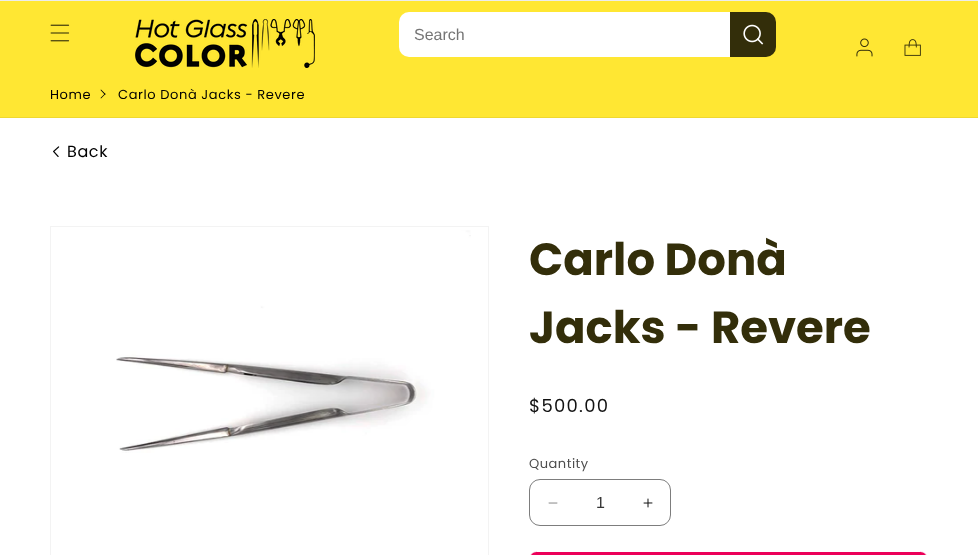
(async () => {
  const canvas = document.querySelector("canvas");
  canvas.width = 978;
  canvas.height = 555;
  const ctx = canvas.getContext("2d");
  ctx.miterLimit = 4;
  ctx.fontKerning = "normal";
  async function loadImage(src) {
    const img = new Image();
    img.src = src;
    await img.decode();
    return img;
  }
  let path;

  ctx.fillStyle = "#ffffff";
  ctx.fillRect(0, 0, 978, 555);
  for (const [x, y, w, h, color] of [
    [0, 0, 978, 1, "#ececec"],
    [0, 1, 978, 116, "#ffe733"],
    [0, 117, 978, 1, "#efd830"],
  ]) {
    ctx.fillStyle = color;
    ctx.fillRect(x, y, w, h);
  }
  ctx.drawImage(await loadImage("img/1.png"), 50, 24, 20, 18);
  ctx.drawImage(await loadImage("img/2.png"), 135, 19, 180, 49);
  ctx.fillStyle = "#ffffff";
  ctx.beginPath();
  ctx.roundRect(399, 12, 331, 45, [10, 0, 0, 10]);
  ctx.fill();
  ctx.fillStyle = "#332e0a";
  ctx.beginPath();
  ctx.roundRect(730, 12, 46, 45, [0, 10, 10, 0]);
  ctx.fill();
  ctx.drawImage(await loadImage("img/3.png"), 743, 24, 21, 21);
  ctx.drawImage(await loadImage("img/4.png"), 856, 38, 17, 19);
  ctx.drawImage(await loadImage("img/5.png"), 904, 39, 17, 17);
  ctx.fillStyle = "#000000";
  path = new Path2D("M101 89.5L105.5 94L105 95L100.5 90Z");
  ctx.fill(path);
  path = new Path2D("M105 93.5L105.5 94L101 98.5L100.5 98Z");
  ctx.fill(path);
  ctx.drawImage(await loadImage("img/6.png"), 53, 146, 7, 11);
  ctx.strokeStyle = "#f3f3f3";
  ctx.strokeRect(50.5, 226.5, 438, 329);
  ctx.drawImage(await loadImage("img/7.png"), 116, 230, 355, 223);
  ctx.drawImage(await loadImage("img/8.png"), 548, 502, 10, 2);
  ctx.drawImage(await loadImage("img/9.png"), 643, 498, 10, 10);
  ctx.beginPath();
  ctx.roundRect(529.5, 479.5, 141, 46, 10.5);
  ctx.strokeStyle = "#7d7d7d";
  ctx.stroke();
  ctx.fillStyle = "#ec0059";
  ctx.beginPath();
  ctx.roundRect(529.5, 551.5, 398, 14, 9.5);
  ctx.fill();
  ctx.strokeStyle = "#ffffff";
  ctx.stroke();
  ctx.font = "16px Liberation Sans";
  ctx.fillStyle = "#757575";
  ctx.fillText("Search", 414, 40);
  ctx.letterSpacing = "0.6px";
  ctx.font = "13px Poppins";
  ctx.fillStyle = "#000000";
  ctx.fillText("Home", 50, 99);
  ctx.fillText("Carlo Donà Jacks - Revere", 118, 99);
  ctx.font = "16px Poppins";
  ctx.fillText("Back", 67, 157);
  ctx.letterSpacing = "0px";
  ctx.font = "bold 45px Poppins";
  ctx.fillStyle = "#332e0a";
  ctx.fillText("Carlo Donà", 529, 275);
  ctx.fillText("Jacks - Revere", 529, 343);
  ctx.letterSpacing = "1.25px";
  ctx.font = "18px Poppins";
  ctx.fillStyle = "#121212";
  ctx.fillText("$500.00", 529, 412);
  ctx.letterSpacing = "0.5px";
  ctx.font = "13px Poppins";
  ctx.fillStyle = "#4d4d4d";
  ctx.fillText("Quantity", 529, 468);
  ctx.letterSpacing = "0px";
  ctx.font = "16px Liberation Sans";
  ctx.fillStyle = "#363636";
  ctx.fillText("1", 596, 508);
})();
